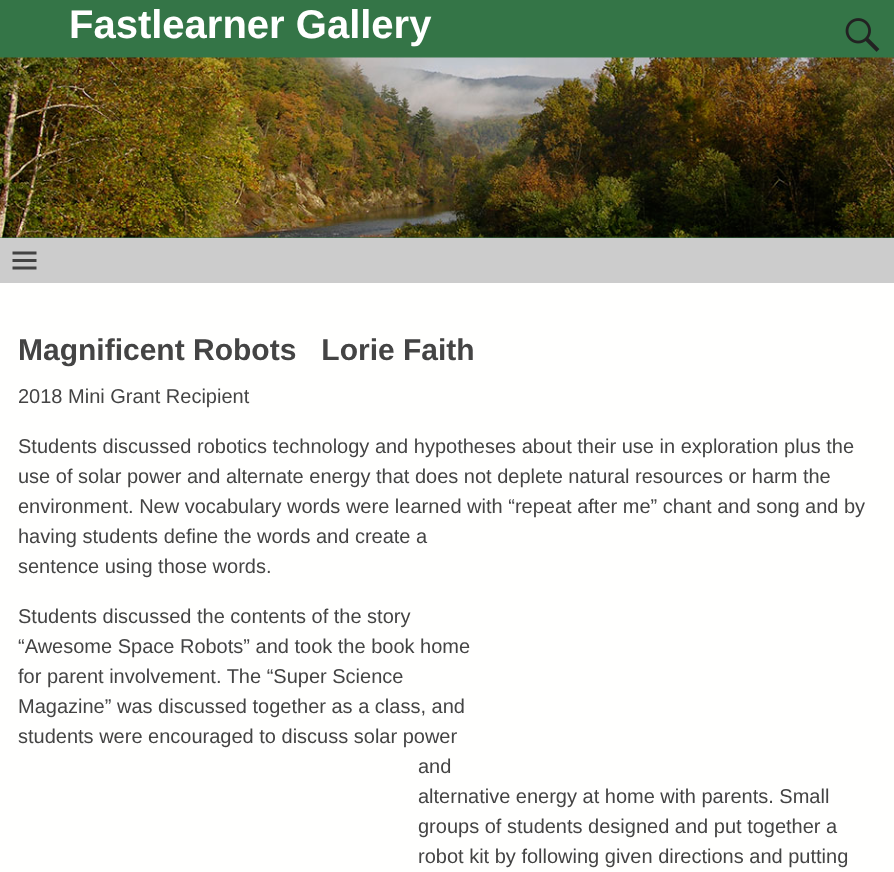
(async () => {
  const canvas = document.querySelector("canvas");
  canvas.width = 894;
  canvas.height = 872;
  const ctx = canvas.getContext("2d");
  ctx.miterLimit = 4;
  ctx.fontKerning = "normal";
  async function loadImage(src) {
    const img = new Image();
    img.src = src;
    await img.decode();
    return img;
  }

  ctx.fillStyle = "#347547";
  ctx.fillRect(0, 0, 894, 872);
  ctx.drawImage(await loadImage("img/1.png"), 845, 18, 35, 34);
  ctx.drawImage(await loadImage("img/2.png"), 0, 57, 894, 181);
  ctx.fillStyle = "#cccccc";
  ctx.fillRect(0, 238, 894, 45);
  ctx.drawImage(await loadImage("img/3.png"), 12, 251, 25, 19);
  ctx.fillStyle = "#fffffe";
  ctx.fillRect(0, 283, 894, 589);
  ctx.font = "bold 40px Liberation Sans";
  ctx.fillStyle = "#ffffff";
  ctx.fillText("Fastlearner Gallery", 69, 38);
  ctx.font = "bold 30px Liberation Sans";
  ctx.fillStyle = "#444444";
  ctx.fillText("Magnificent Robots   Lorie Faith", 18, 360);
  ctx.font = "20px Liberation Sans";
  for (const [text, x, y] of [
    ["2018 Mini Grant Recipient", 18, 403],
    ["Students discussed robotics technology and hypotheses about their use in exploration plus the", 18, 453],
    ["use of solar power and alternate energy that does not deplete natural resources or harm the", 18, 483],
    ["environment. New vocabulary words were learned with “repeat after me” chant and song and by", 18, 513],
    ["having students define the words and create a", 18, 543],
    ["sentence using those words.", 18, 573],
    ["Students discussed the contents of the story", 18, 623],
    ["“Awesome Space Robots” and took the book home", 18, 653],
    ["for parent involvement. The “Super Science", 18, 683],
    ["Magazine” was discussed together as a class, and", 18, 713],
    ["students were encouraged to discuss solar power", 18, 743],
    ["and", 418, 773],
    ["alternative energy at home with parents. Small", 418, 803],
    ["groups of students designed and put together a", 418, 833],
    ["robot kit by following given directions and putting", 418, 863],
  ]) {
    ctx.fillText(text, x, y);
  }
})();
